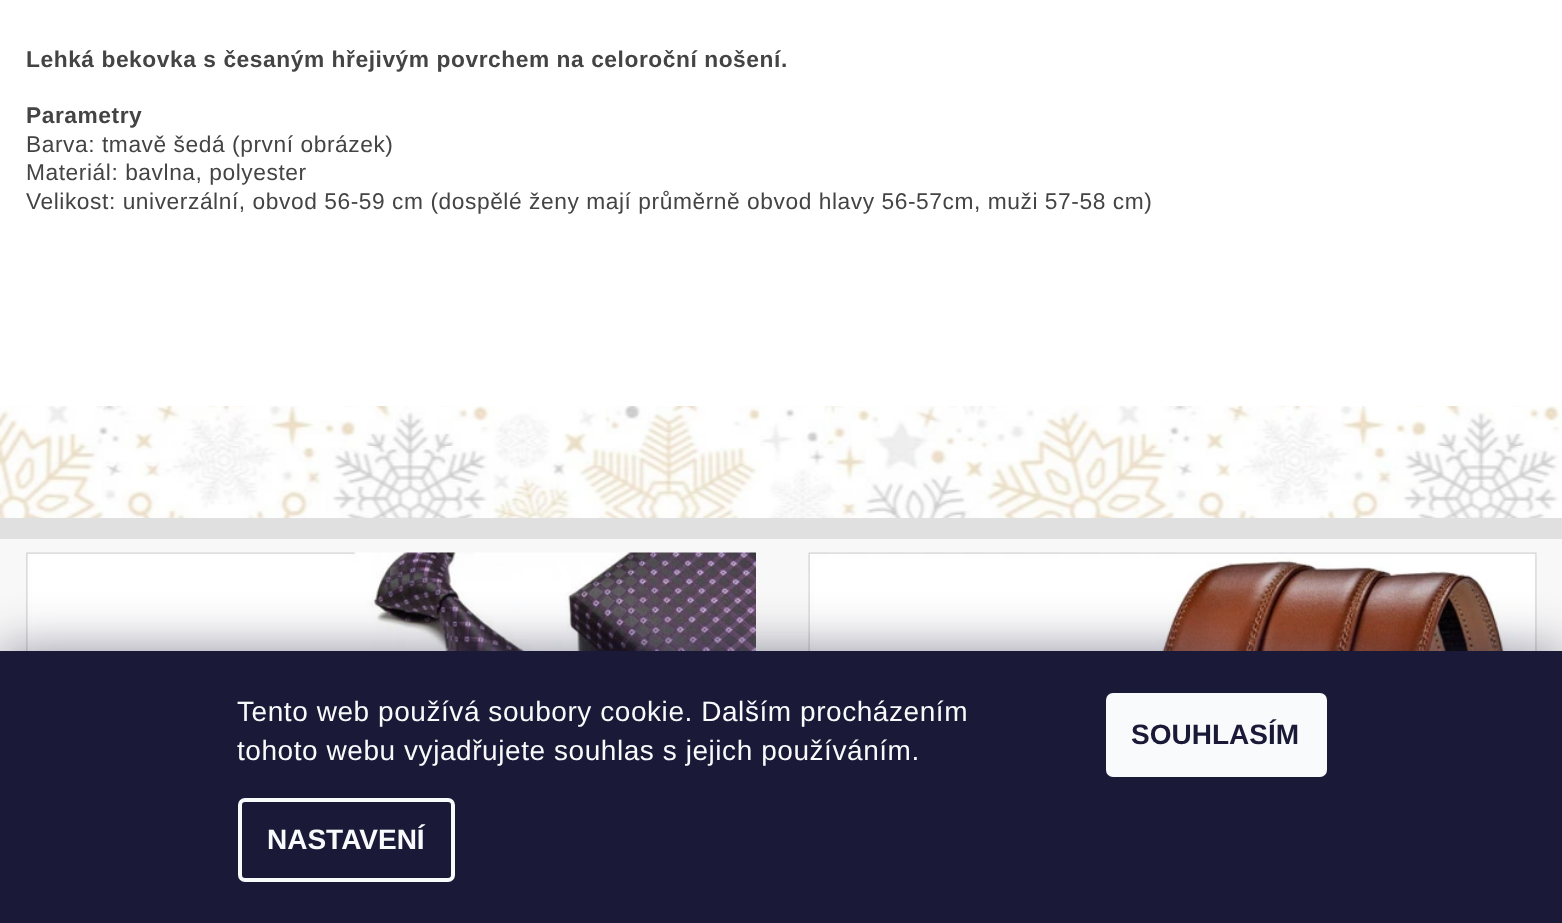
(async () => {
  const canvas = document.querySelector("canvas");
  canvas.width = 1562;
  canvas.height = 923;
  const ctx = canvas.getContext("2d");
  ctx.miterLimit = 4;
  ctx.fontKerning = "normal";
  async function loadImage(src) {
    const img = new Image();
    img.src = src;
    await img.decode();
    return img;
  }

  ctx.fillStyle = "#ffffff";
  ctx.fillRect(0, 0, 1562, 923);
  ctx.drawImage(await loadImage("img/1.png"), 0, 406, 1562, 112);
  ctx.fillStyle = "#f8f8f8";
  ctx.fillRect(0, 539, 1562, 112);
  ctx.fillStyle = "#e0e0e0";
  ctx.fillRect(0, 518, 1562, 21);
  ctx.drawImage(await loadImage("img/2.png"), 26, 552, 730, 99);
  ctx.drawImage(await loadImage("img/3.png"), 808, 552, 729, 99);
  ctx.fillStyle = "rgba(27, 25, 57, 0.5)";
  ctx.filter = "blur(26px)";
  ctx.beginPath();
  ctx.rect(0, 651, 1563, 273);
  ctx.fill();
  ctx.filter = "none";
  ctx.fillStyle = "#1a1937";
  ctx.fillRect(0, 651, 1562, 272);
  ctx.beginPath();
  ctx.roundRect(240, 800, 213, 80, 5);
  ctx.strokeStyle = "#f8fafb";
  ctx.lineWidth = 4;
  ctx.stroke();
  ctx.fillStyle = "#f8fafb";
  ctx.beginPath();
  ctx.roundRect(1106, 693, 221, 84, 7);
  ctx.fill();
  ctx.letterSpacing = "0.56px";
  ctx.font = "bold 22.75px Liberation Sans";
  ctx.fillStyle = "#444444";
  ctx.fillText("Lehká bekovka s česaným hřejivým povrchem na celoroční nošení.", 26, 67);
  ctx.fillText("Parametry", 26, 123);
  ctx.font = "22.75px Liberation Sans";
  for (const [text, x, y] of [
    ["Barva: tmavě šedá (první obrázek)", 26, 152],
    ["Materiál: bavlna, polyester", 26, 180],
    ["Velikost: univerzální, obvod 56-59 cm (dospělé ženy mají průměrně obvod hlavy 56-57cm, muži 57-58 cm)", 26, 209],
  ]) {
    ctx.fillText(text, x, y);
  }
  ctx.font = "28px Liberation Sans";
  ctx.fillStyle = "#f8fafb";
  ctx.fillText("Tento web používá soubory cookie. Dalším procházením", 237, 721);
  ctx.fillText("tohoto webu vyjadřujete souhlas s jejich používáním.", 237, 760);
  ctx.letterSpacing = "0px";
  ctx.font = "bold 28px Liberation Sans";
  ctx.fillText("NASTAVENÍ", 267, 849);
  ctx.fillStyle = "#1a1937";
  ctx.fillText("SOUHLASÍM", 1131, 744);
})();
